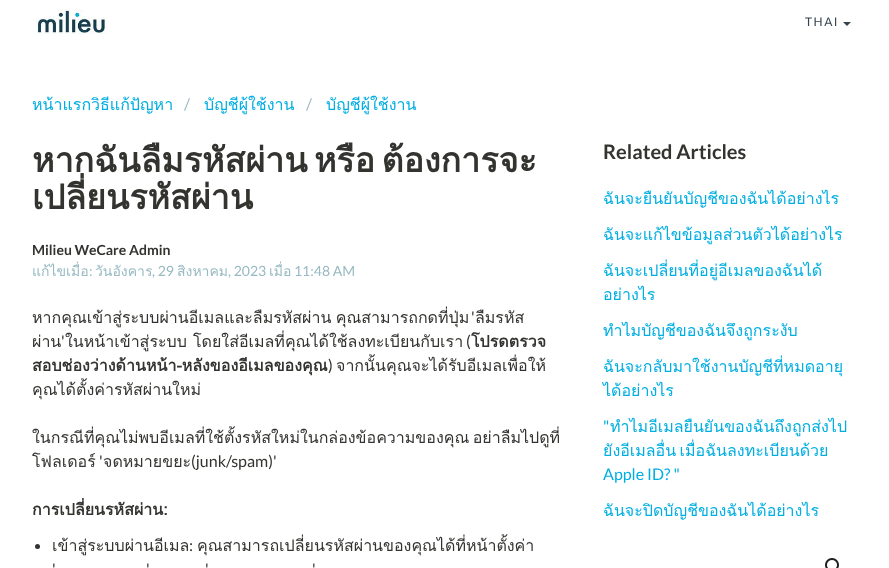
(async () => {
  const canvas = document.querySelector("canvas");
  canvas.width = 889;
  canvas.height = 568;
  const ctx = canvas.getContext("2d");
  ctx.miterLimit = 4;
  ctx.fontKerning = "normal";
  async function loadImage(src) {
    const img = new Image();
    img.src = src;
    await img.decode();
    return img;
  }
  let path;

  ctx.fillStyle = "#ffffff";
  ctx.fillRect(0, 0, 889, 568);
  ctx.drawImage(await loadImage("img/1.png"), 32, 9, 76, 25);
  ctx.fillStyle = "#34444f";
  path = new Path2D("M843 22H851L847 26Z");
  ctx.fill(path);
  ctx.fillStyle = "#333330";
  ctx.beginPath();
  ctx.arc(37.5, 546.5, 2.5, 0, Math.PI * 2);
  ctx.fill();
  ctx.drawImage(await loadImage("img/2.png"), 825, 558, 14, 10);
  ctx.letterSpacing = "1.5px";
  ctx.font = "12px Lato";
  ctx.fillStyle = "#34444f";
  ctx.fillText("THAI", 805, 26);
  ctx.letterSpacing = "0px";
  ctx.font = "16px Loma";
  ctx.fillStyle = "#00aee2";
  ctx.fillText("หน้าแรกวิธีแก้ปัญหา", 32, 110);
  ctx.font = "16px Lato";
  ctx.fillStyle = "#98bac3";
  ctx.fillText("/", 184, 110);
  ctx.font = "16px Loma";
  ctx.fillStyle = "#00aee2";
  ctx.fillText("บัญชีผู้ใช้งาน", 204, 110);
  ctx.font = "16px Lato";
  ctx.fillStyle = "#98bac3";
  ctx.fillText("/", 306, 110);
  ctx.font = "16px Loma";
  ctx.fillStyle = "#00aee2";
  ctx.fillText("บัญชีผู้ใช้งาน", 326, 110);
  ctx.wordSpacing = "-5px";
  ctx.font = "bold 34px Loma";
  ctx.fillStyle = "#333330";
  ctx.fillText("หากฉันลืมรหัสผ่าน หรือ ต้องการจะ", 32, 172);
  ctx.wordSpacing = "0px";
  ctx.fillText("เปลี่ยนรหัสผ่าน", 32, 209);
  ctx.font = "bold 14px Lato";
  ctx.fillText("Milieu WeCare Admin", 32, 255);
  ctx.font = "14px Loma";
  ctx.fillStyle = "#98bac3";
  ctx.fillText("แก้ไขเมื่อ", 32, 276);
  ctx.font = "14px Lato";
  ctx.fillText(", 29", 152, 276);
  ctx.font = "14px Loma";
  ctx.fillText("สิงหาคม", 177, 276);
  ctx.font = "14px Lato";
  ctx.fillText(", 2023", 228, 276);
  ctx.font = "14px Loma";
  ctx.fillText("เมื่อ", 269, 276);
  ctx.font = "14px Lato";
  ctx.fillText("11:48 AM", 294, 276);
  ctx.fillText(":", 89, 276);
  ctx.font = "14px Loma";
  ctx.fillText("วันอังคาร", 95, 276);
  ctx.wordSpacing = "-1px";
  ctx.font = "16px Loma";
  ctx.fillStyle = "#333330";
  ctx.fillText("หากคุณเข้าสู่ระบบผ่านอีเมลและลืมรหัสผ่าน คุณสามารถกดที่ปุ่ม", 32, 323);
  ctx.wordSpacing = "0px";
  ctx.font = "16px Lato";
  ctx.fillText("'", 471, 323);
  ctx.font = "16px Loma";
  ctx.fillText("ลืมรหัส", 475, 323);
  ctx.fillText("ผ่าน", 32, 347);
  ctx.font = "16px Lato";
  ctx.fillText("'", 61, 347);
  ctx.font = "16px Loma";
  ctx.fillText("ในหน้าเข้าสู่ระบบ", 65, 347);
  ctx.fillText("โดยใส่อีเมลที่คุณได้ใช้ลงทะเบียนกับเรา", 193, 347);
  ctx.font = "16px Lato";
  ctx.fillText("(", 466, 347);
  ctx.font = "bold 16px Loma";
  ctx.fillText("โปรดตรวจ", 471, 347);
  ctx.fillText("สอบช่องว่างด้านหน้า-หลังของอีเมลของคุณ", 32, 371);
  ctx.font = "16px Lato";
  ctx.fillText(")", 328, 371);
  ctx.font = "16px Loma";
  ctx.fillText("จากนั้นคุณจะได้รับอีเมลเพื่อให้", 336, 371);
  ctx.fillText("คุณได้ตั้งค่ารหัสผ่านใหม่", 32, 395);
  ctx.wordSpacing = "-2px";
  ctx.fillText("ในกรณีที่คุณไม่พบอีเมลที่ใช้ตั้งรหัสใหม่ในกล่องข้อความของคุณ อย่าลืมไปดูที่", 32, 443);
  ctx.wordSpacing = "0px";
  ctx.fillText("โฟลเดอร์", 32, 467);
  ctx.font = "16px Lato";
  ctx.fillText("'", 99, 467);
  ctx.fillText("(junk/spam)'", 191, 467);
  ctx.font = "16px Loma";
  ctx.fillText("จดหมายขยะ", 103, 467);
  ctx.font = "bold 16px Loma";
  ctx.fillText("การเปลี่ยนรหัสผ่าน:", 32, 515);
  ctx.font = "16px Loma";
  ctx.fillText("เข้าสู่ระบบผ่านอีเมล", 52, 551);
  ctx.font = "16px Lato";
  ctx.fillText(":", 189, 551);
  ctx.font = "16px Loma";
  ctx.fillText("คุณสามารถเปลี่ยนรหัสผ่านของคุณได้ที่หน้าตั้งค่า", 197, 551);
  ctx.font = "16px Lato";
  for (const [text, x, y] of [
    ["'", 52, 575],
    ["'", 146, 575],
    ["'", 205, 575],
    ["'", 312, 575],
  ]) {
    ctx.fillText(text, x, y);
  }
  ctx.font = "bold 20px Lato";
  ctx.fillText("Related Articles", 603, 159);
  ctx.font = "16px Loma";
  ctx.fillStyle = "#00aee2";
  for (const [text, x, y] of [
    ["ฉันจะยืนยันบัญชีของฉันได้อย่างไร", 603, 204],
    ["ฉันจะแก้ไขข้อมูลส่วนตัวได้อย่างไร", 603, 240],
    ["ฉันจะเปลี่ยนที่อยู่อีเมลของฉันได้", 603, 276],
    ["อย่างไร", 603, 300],
    ["ทำไมบัญชีของฉันจึงถูกระงับ", 603, 336],
    ["ฉันจะกลับมาใช้งานบัญชีที่หมดอายุ", 603, 372],
    ["ได้อย่างไร", 603, 396],
  ]) {
    ctx.fillText(text, x, y);
  }
  ctx.font = "16px Lato";
  ctx.fillText("\"", 603, 432);
  ctx.font = "16px Loma";
  ctx.fillText("ทำไมอีเมลยืนยันของฉันถึงถูกส่งไป", 610, 432);
  ctx.wordSpacing = "-2px";
  ctx.fillText("ยังอีเมลอื่น เมื่อฉันลงทะเบียนด้วย", 603, 456);
  ctx.wordSpacing = "0px";
  ctx.font = "16px Lato";
  ctx.fillText("Apple ID? \"", 603, 480);
  ctx.font = "16px Loma";
  ctx.fillText("ฉันจะปิดบัญชีของฉันได้อย่างไร", 603, 516);
})();
